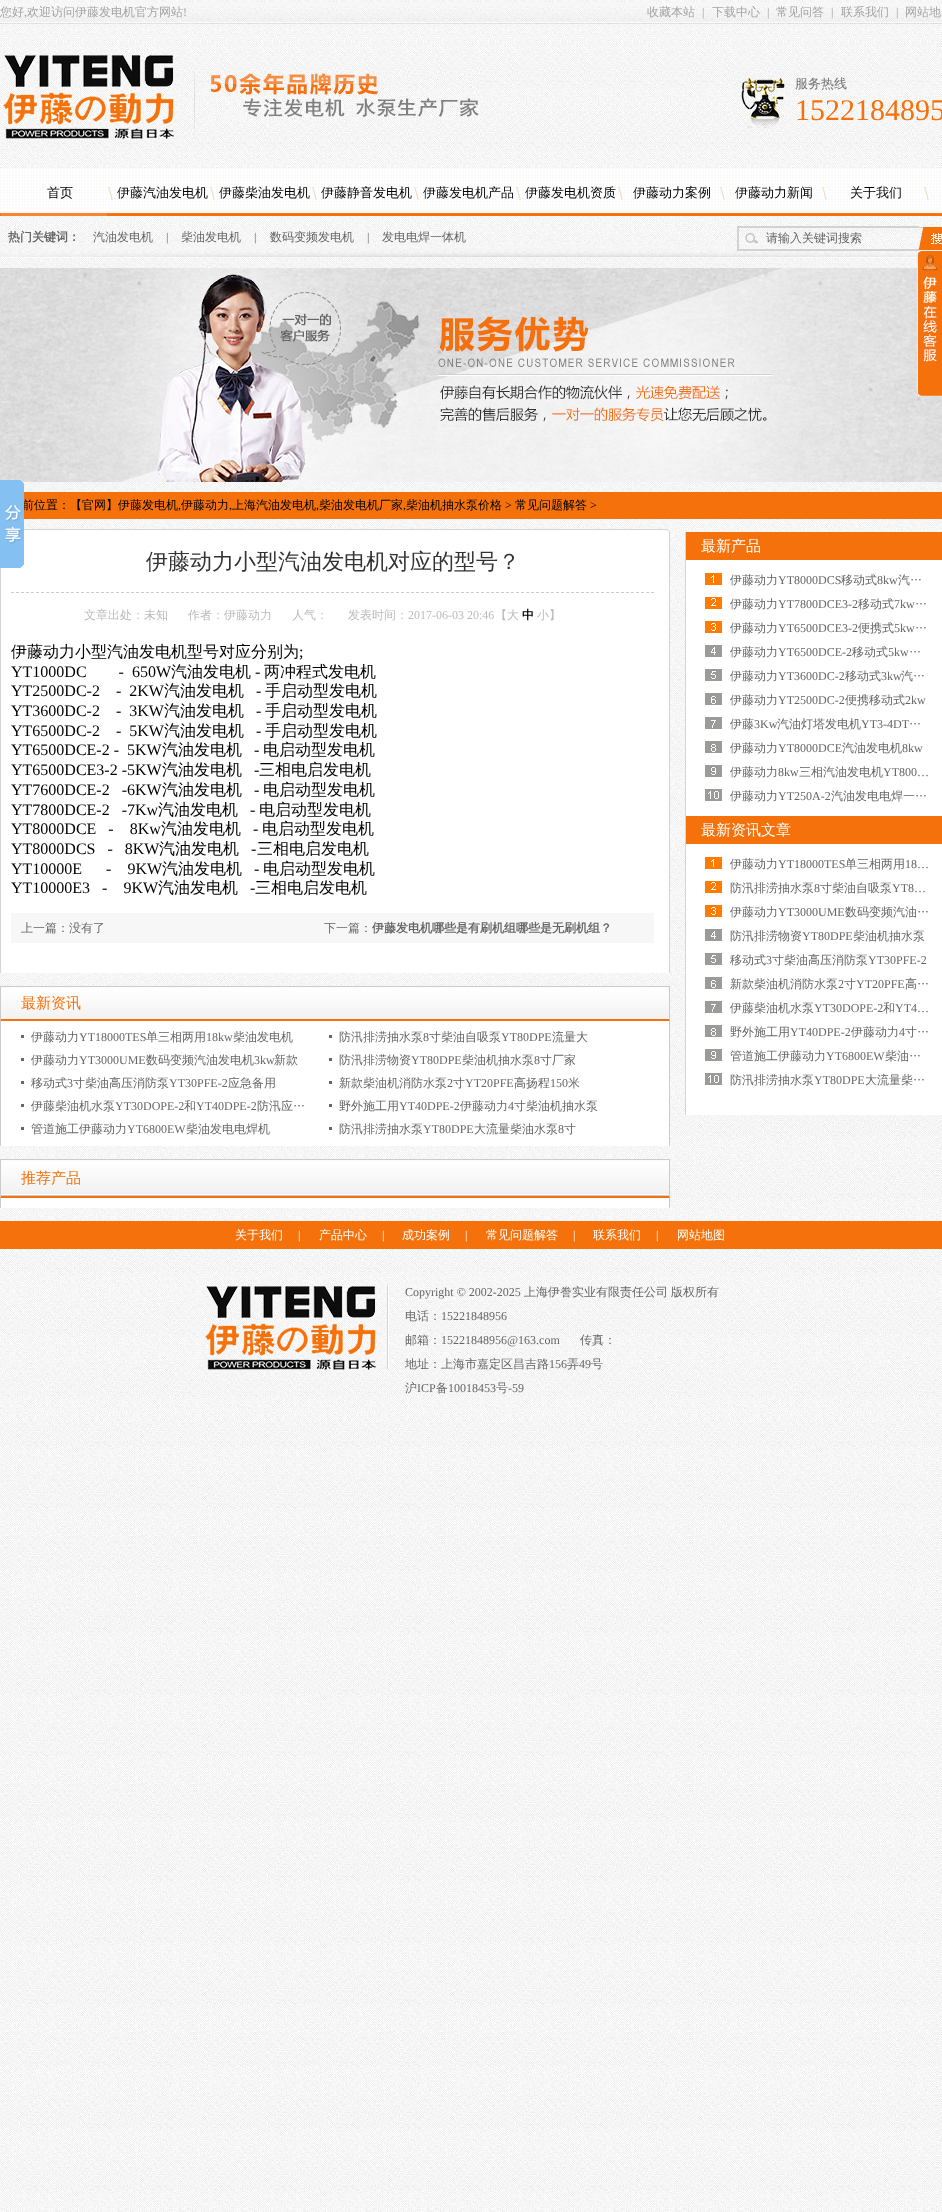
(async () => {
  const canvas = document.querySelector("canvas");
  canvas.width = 942;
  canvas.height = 2212;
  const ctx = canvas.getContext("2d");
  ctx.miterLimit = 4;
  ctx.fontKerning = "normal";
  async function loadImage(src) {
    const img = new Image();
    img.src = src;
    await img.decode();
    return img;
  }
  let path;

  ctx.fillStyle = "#ffffff";
  ctx.fillRect(0, 0, 942, 2212);
  ctx.drawImage(await loadImage("img/1.png"), 0, 216, 942, 1996);
  ctx.drawImage(await loadImage("img/2.png"), 0, 0, 942, 216);
  ctx.drawImage(await loadImage("img/3.png"), 3, 55, 192, 84);
  ctx.drawImage(await loadImage("img/4.png"), 209, 73, 270, 49);
  ctx.drawImage(await loadImage("img/5.png"), 741, 78, 44, 50);
  ctx.drawImage(await loadImage("img/6.png"), 108, 187, 5, 13);
  ctx.drawImage(await loadImage("img/6.png"), 210, 187, 5, 13);
  ctx.drawImage(await loadImage("img/6.png"), 312, 187, 5, 13);
  ctx.drawImage(await loadImage("img/6.png"), 414, 187, 5, 13);
  ctx.drawImage(await loadImage("img/6.png"), 516, 187, 5, 13);
  ctx.drawImage(await loadImage("img/6.png"), 618, 187, 5, 13);
  ctx.drawImage(await loadImage("img/6.png"), 720, 187, 5, 13);
  ctx.drawImage(await loadImage("img/6.png"), 822, 187, 5, 13);
  ctx.drawImage(await loadImage("img/6.png"), 924, 187, 5, 13);
  ctx.drawImage(await loadImage("img/7.png"), 0, 213, 108, 3);
  ctx.drawImage(await loadImage("img/8.png"), 0, 243, 942, 15);
  ctx.drawImage(await loadImage("img/9.png"), 738, 227, 181, 23);
  for (const [x, y, w, h, color] of [
    [737, 226, 182, 1, "#d2d2d2"],
    [737, 250, 182, 1, "#d2d2d2"],
    [737, 226, 1, 25, "#d2d2d2"],
  ]) {
    ctx.fillStyle = color;
    ctx.fillRect(x, y, w, h);
  }
  ctx.drawImage(await loadImage("img/10.png"), 919, 227, 23, 23);
  ctx.drawImage(await loadImage("img/13.png"), 0, 268, 942, 214);
  ctx.drawImage(await loadImage("img/11.png"), 917, 251, 25, 145);
  ctx.drawImage(await loadImage("img/14.png"), 24, 492, 918, 27);
  ctx.drawImage(await loadImage("img/15.png"), 24, 529, 646, 3);
  for (const [x, y, w, h, color] of [
    [1, 532, 668, 441, "#ffffff"],
    [669, 532, 1, 441, "#d5d5d5"],
    [0, 568, 1, 405, "#d5d5d5"],
  ]) {
    ctx.fillStyle = color;
    ctx.fillRect(x, y, w, h);
  }
  path = new Path2D("M11 592.5H654");
  ctx.strokeStyle = "#cccccc";
  ctx.setLineDash([3, 2]);
  ctx.stroke(path);
  ctx.fillStyle = "#f7f7f7";
  ctx.fillRect(11, 913, 643, 30);
  ctx.drawImage(await loadImage("img/16.png"), 0, 987, 670, 34);
  ctx.fillStyle = "#cccccc";
  ctx.fillRect(0, 986, 670, 1);
  path = new Path2D("M670 986V1021L669 1019V987Z");
  ctx.fill(path);
  ctx.fillStyle = "#f5710b";
  path = new Path2D("M670 1021H0L1 1019H669Z");
  ctx.fill(path);
  ctx.fillStyle = "#cccccc";
  path = new Path2D("M0 1021V986L1 987V1019Z");
  ctx.fill(path);
  for (const [x, y, w, h, color] of [
    [1, 1021, 668, 125, "#ffffff"],
    [669, 1021, 1, 125, "#cccccc"],
    [0, 1021, 1, 125, "#cccccc"],
    [21, 1035, 3, 3, "#666666"],
    [329, 1035, 3, 3, "#666666"],
    [21, 1058, 3, 3, "#666666"],
    [329, 1058, 3, 3, "#666666"],
    [21, 1081, 3, 3, "#666666"],
    [329, 1081, 3, 3, "#666666"],
    [21, 1104, 3, 3, "#666666"],
    [329, 1104, 3, 3, "#666666"],
    [21, 1127, 3, 3, "#666666"],
    [329, 1127, 3, 3, "#666666"],
  ]) {
    ctx.fillStyle = color;
    ctx.fillRect(x, y, w, h);
  }
  ctx.drawImage(await loadImage("img/17.png"), 1, 1160, 668, 36);
  ctx.fillStyle = "#cccccc";
  ctx.fillRect(0, 1159, 670, 1);
  path = new Path2D("M670 1159V1198L669 1196V1160Z");
  ctx.fill(path);
  ctx.fillStyle = "#f5710b";
  path = new Path2D("M670 1198H0L1 1196H669Z");
  ctx.fill(path);
  ctx.fillStyle = "#cccccc";
  path = new Path2D("M0 1198V1159L1 1160V1196Z");
  ctx.fill(path);
  for (const [x, y, w, h, color] of [
    [1, 1198, 668, 10, "#ffffff"],
    [669, 1198, 1, 10, "#cccccc"],
    [0, 1198, 1, 10, "#cccccc"],
    [686, 560, 256, 555, "#ffffff"],
    [685, 532, 1, 583, "#d5d5d5"],
    [686, 532, 256, 28, "#f5710b"],
  ]) {
    ctx.fillStyle = color;
    ctx.fillRect(x, y, w, h);
  }
  ctx.drawImage(await loadImage("img/18.png"), 705, 573, 17, 228);
  ctx.fillRect(686, 816, 256, 28);
  ctx.drawImage(await loadImage("img/18.png"), 705, 857, 17, 228);
  ctx.drawImage(await loadImage("img/19.png"), 0, 1221, 942, 199);
  ctx.drawImage(await loadImage("img/20.png"), 205, 1286, 171, 84);
  ctx.drawImage(await loadImage("img/21.png"), 387, 1285, 2, 84);
  ctx.font = "500 12px WenQuanYi Zen Hei";
  ctx.fillStyle = "#a4a4a4";
  ctx.fillText("您好", 0, 16);
  ctx.font = "12px Liberation Serif";
  ctx.fillText(",", 24, 16);
  ctx.font = "500 12px WenQuanYi Zen Hei";
  ctx.fillText("欢迎访问伊藤发电机官方网站", 27, 16);
  ctx.font = "12px Liberation Serif";
  ctx.fillText("!", 183, 16);
  ctx.font = "500 12px WenQuanYi Zen Hei";
  ctx.fillText("收藏本站", 647, 16);
  ctx.font = "12px Liberation Serif";
  ctx.fillText("|", 702, 16);
  ctx.font = "500 12px WenQuanYi Zen Hei";
  ctx.fillText("下载中心", 712, 16);
  ctx.font = "12px Liberation Serif";
  ctx.fillText("|", 767, 16);
  ctx.font = "500 12px WenQuanYi Zen Hei";
  ctx.fillText("常见问答", 776, 16);
  ctx.font = "12px Liberation Serif";
  ctx.fillText("|", 831, 16);
  ctx.font = "500 12px WenQuanYi Zen Hei";
  ctx.fillText("联系我们", 841, 16);
  ctx.font = "12px Liberation Serif";
  ctx.fillText("|", 896, 16);
  ctx.font = "500 12px WenQuanYi Zen Hei";
  ctx.fillText("网站地", 905, 16);
  ctx.font = "500 13px WenQuanYi Zen Hei";
  ctx.fillStyle = "#727272";
  ctx.fillText("服务热线", 795, 88);
  ctx.font = "30px Liberation Serif";
  ctx.fillStyle = "#f5710b";
  ctx.fillText("1522184895", 795, 120);
  ctx.font = "500 13px WenQuanYi Zen Hei";
  ctx.fillStyle = "#000000";
  for (const [text, x, y] of [
    ["首页", 47, 197],
    ["伊藤汽油发电机", 117, 197],
    ["伊藤柴油发电机", 219, 197],
    ["伊藤静音发电机", 321, 197],
    ["伊藤发电机产品", 423, 197],
    ["伊藤发电机资质", 525, 197],
    ["伊藤动力案例", 633, 197],
    ["伊藤动力新闻", 735, 197],
    ["关于我们", 850, 197],
  ]) {
    ctx.fillText(text, x, y);
  }
  ctx.font = "bold 12px WenQuanYi Zen Hei";
  ctx.fillStyle = "#666666";
  ctx.fillText("热门关键词：", 8, 241);
  ctx.font = "500 12px WenQuanYi Zen Hei";
  ctx.fillText("汽油发电机", 93, 241);
  ctx.font = "12px Liberation Serif";
  ctx.fillText("|", 166, 241);
  ctx.font = "500 12px WenQuanYi Zen Hei";
  ctx.fillText("柴油发电机", 181, 241);
  ctx.font = "12px Liberation Serif";
  ctx.fillText("|", 254, 241);
  ctx.font = "500 12px WenQuanYi Zen Hei";
  ctx.fillText("数码变频发电机", 270, 241);
  ctx.font = "12px Liberation Serif";
  ctx.fillText("|", 367, 241);
  ctx.font = "500 12px WenQuanYi Zen Hei";
  ctx.fillText("发电电焊一体机", 382, 241);
  ctx.fillText("请输入关键词搜索", 766, 242);
  ctx.fillStyle = "#000000";
  ctx.fillText("前位置：【官网】伊藤发电机", 22, 509);
  ctx.drawImage(await loadImage("img/12.png"), 0, 480, 24, 88);
  for (const [text, x, y] of [
    ["伊藤动力", 181, 509],
    ["上海汽油发电机", 232, 509],
    ["柴油发电机厂家", 319, 509],
    ["柴油机抽水泵价格", 406, 509],
  ]) {
    ctx.fillText(text, x, y);
  }
  ctx.font = "12px Liberation Serif";
  ctx.fillText(">", 505, 509);
  ctx.font = "500 12px WenQuanYi Zen Hei";
  ctx.fillText("常见问题解答", 515, 509);
  ctx.font = "12px Liberation Serif";
  for (const [text, x, y] of [
    [">", 590, 509],
    [",", 178, 509],
    [",", 229, 509],
    [",", 316, 509],
    [",", 403, 509],
  ]) {
    ctx.fillText(text, x, y);
  }
  ctx.font = "500 22px WenQuanYi Zen Hei";
  ctx.fillStyle = "#333333";
  ctx.fillText("伊藤动力小型汽油发电机对应的型号？", 146, 569);
  ctx.font = "500 12px WenQuanYi Zen Hei";
  ctx.fillStyle = "#bcbbbb";
  for (const [text, x, y] of [
    ["文章出处：未知", 84, 619],
    ["作者：伊藤动力", 188, 619],
    ["人气：", 292, 619],
    ["发表时间：", 348, 619],
  ]) {
    ctx.fillText(text, x, y);
  }
  ctx.font = "12px Liberation Serif";
  ctx.fillText("2017-06-03 20:46", 408, 619);
  ctx.font = "500 12px WenQuanYi Zen Hei";
  ctx.fillText("【大", 495, 619);
  ctx.font = "bold 12px WenQuanYi Zen Hei";
  ctx.fillStyle = "#000000";
  ctx.fillText("中", 522, 619);
  ctx.font = "500 12px WenQuanYi Zen Hei";
  ctx.fillStyle = "#bcbbbb";
  ctx.fillText("小】", 537, 619);
  ctx.font = "500 16px WenQuanYi Zen Hei";
  ctx.fillStyle = "#000000";
  ctx.fillText("伊藤动力小型汽油发电机型号对应分别为", 11, 657);
  ctx.font = "16px Liberation Serif";
  ctx.fillText(";", 299, 657);
  ctx.fillText("YT1000DC        -  650W", 11, 677);
  ctx.font = "500 16px WenQuanYi Zen Hei";
  ctx.fillText("汽油发电机", 171, 677);
  ctx.font = "16px Liberation Serif";
  ctx.fillText("-", 255, 677);
  ctx.font = "500 16px WenQuanYi Zen Hei";
  ctx.fillText("两冲程式发电机", 264, 677);
  ctx.font = "16px Liberation Serif";
  ctx.fillText("YT2500DC-2    -  2KW", 11, 696);
  ctx.font = "500 16px WenQuanYi Zen Hei";
  ctx.fillText("汽油发电机", 164, 696);
  ctx.font = "16px Liberation Serif";
  ctx.fillText("-", 256, 696);
  ctx.font = "500 16px WenQuanYi Zen Hei";
  ctx.fillText("手启动型发电机", 265, 696);
  ctx.font = "16px Liberation Serif";
  ctx.fillText("YT3600DC-2    -  3KW", 11, 716);
  ctx.font = "500 16px WenQuanYi Zen Hei";
  ctx.fillText("汽油发电机", 164, 716);
  ctx.font = "16px Liberation Serif";
  ctx.fillText("-", 256, 716);
  ctx.font = "500 16px WenQuanYi Zen Hei";
  ctx.fillText("手启动型发电机", 265, 716);
  ctx.font = "16px Liberation Serif";
  ctx.fillText("YT6500DC-2    -  5KW", 11, 736);
  ctx.font = "500 16px WenQuanYi Zen Hei";
  ctx.fillText("汽油发电机", 164, 736);
  ctx.font = "16px Liberation Serif";
  ctx.fillText("-", 256, 736);
  ctx.font = "500 16px WenQuanYi Zen Hei";
  ctx.fillText("手启动型发电机", 265, 736);
  ctx.font = "16px Liberation Serif";
  ctx.fillText("YT6500DCE-2 -  5KW", 11, 755);
  ctx.font = "500 16px WenQuanYi Zen Hei";
  ctx.fillText("汽油发电机", 162, 755);
  ctx.font = "16px Liberation Serif";
  ctx.fillText("-", 254, 755);
  ctx.font = "500 16px WenQuanYi Zen Hei";
  ctx.fillText("电启动型发电机", 263, 755);
  ctx.font = "16px Liberation Serif";
  ctx.fillText("YT6500DCE3-2 -5KW", 11, 775);
  ctx.font = "500 16px WenQuanYi Zen Hei";
  ctx.fillText("汽油发电机", 162, 775);
  ctx.font = "16px Liberation Serif";
  ctx.fillText("-", 254, 775);
  ctx.font = "500 16px WenQuanYi Zen Hei";
  ctx.fillText("三相电启发电机", 259, 775);
  ctx.font = "16px Liberation Serif";
  ctx.fillText("YT7600DCE-2   -6KW", 11, 795);
  ctx.font = "500 16px WenQuanYi Zen Hei";
  ctx.fillText("汽油发电机", 162, 795);
  ctx.font = "16px Liberation Serif";
  ctx.fillText("-", 254, 795);
  ctx.font = "500 16px WenQuanYi Zen Hei";
  ctx.fillText("电启动型发电机", 263, 795);
  ctx.font = "16px Liberation Serif";
  ctx.fillText("YT7800DCE-2   -7Kw", 11, 815);
  ctx.font = "500 16px WenQuanYi Zen Hei";
  ctx.fillText("汽油发电机", 158, 815);
  ctx.font = "16px Liberation Serif";
  ctx.fillText("-", 250, 815);
  ctx.font = "500 16px WenQuanYi Zen Hei";
  ctx.fillText("电启动型发电机", 259, 815);
  ctx.font = "16px Liberation Serif";
  ctx.fillText("YT8000DCE   -    8Kw", 11, 834);
  ctx.font = "500 16px WenQuanYi Zen Hei";
  ctx.fillText("汽油发电机", 161, 834);
  ctx.font = "16px Liberation Serif";
  ctx.fillText("-", 253, 834);
  ctx.font = "500 16px WenQuanYi Zen Hei";
  ctx.fillText("电启动型发电机", 262, 834);
  ctx.font = "16px Liberation Serif";
  ctx.fillText("YT8000DCS   -   8KW", 11, 854);
  ctx.font = "500 16px WenQuanYi Zen Hei";
  ctx.fillText("汽油发电机", 159, 854);
  ctx.font = "16px Liberation Serif";
  ctx.fillText("-", 251, 854);
  ctx.font = "500 16px WenQuanYi Zen Hei";
  ctx.fillText("三相电启发电机", 257, 854);
  ctx.font = "16px Liberation Serif";
  ctx.fillText("YT10000E      -    9KW", 11, 874);
  ctx.font = "500 16px WenQuanYi Zen Hei";
  ctx.fillText("汽油发电机", 162, 874);
  ctx.font = "16px Liberation Serif";
  ctx.fillText("-", 254, 874);
  ctx.font = "500 16px WenQuanYi Zen Hei";
  ctx.fillText("电启动型发电机", 263, 874);
  ctx.font = "16px Liberation Serif";
  ctx.fillText("YT10000E3   -    9KW", 11, 893);
  ctx.font = "500 16px WenQuanYi Zen Hei";
  ctx.fillText("汽油发电机", 158, 893);
  ctx.font = "16px Liberation Serif";
  ctx.fillText("-", 250, 893);
  ctx.font = "500 16px WenQuanYi Zen Hei";
  ctx.fillText("三相电启发电机", 255, 893);
  ctx.font = "500 12px WenQuanYi Zen Hei";
  ctx.fillStyle = "#666666";
  ctx.fillText("上一篇：没有了", 21, 932);
  ctx.fillText("下一篇：", 324, 932);
  ctx.font = "bold 12px WenQuanYi Zen Hei";
  ctx.fillText("伊藤发电机哪些是有刷机组哪些是无刷机组？", 372, 932);
  ctx.font = "500 15px WenQuanYi Zen Hei";
  ctx.fillStyle = "#f5710b";
  ctx.fillText("最新资讯", 21, 1008);
  ctx.font = "500 12px WenQuanYi Zen Hei";
  ctx.fillStyle = "#666666";
  ctx.fillText("伊藤动力", 31, 1041);
  ctx.font = "12px Liberation Serif";
  ctx.fillText("YT18000TES", 79, 1041);
  ctx.font = "500 12px WenQuanYi Zen Hei";
  ctx.fillText("单三相两用", 146, 1041);
  ctx.font = "12px Liberation Serif";
  ctx.fillText("18kw", 206, 1041);
  ctx.font = "500 12px WenQuanYi Zen Hei";
  ctx.fillText("柴油发电机", 233, 1041);
  ctx.fillText("防汛排涝抽水泵", 339, 1041);
  ctx.font = "12px Liberation Serif";
  ctx.fillText("8", 423, 1041);
  ctx.font = "500 12px WenQuanYi Zen Hei";
  ctx.fillText("寸柴油自吸泵", 429, 1041);
  ctx.font = "12px Liberation Serif";
  ctx.fillText("YT80DPE", 501, 1041);
  ctx.font = "500 12px WenQuanYi Zen Hei";
  ctx.fillText("流量大", 552, 1041);
  ctx.fillText("伊藤动力", 31, 1064);
  ctx.font = "12px Liberation Serif";
  ctx.fillText("YT3000UME", 79, 1064);
  ctx.font = "500 12px WenQuanYi Zen Hei";
  ctx.fillText("数码变频汽油发电机", 146, 1064);
  ctx.font = "12px Liberation Serif";
  ctx.fillText("3kw", 254, 1064);
  ctx.font = "500 12px WenQuanYi Zen Hei";
  ctx.fillText("新款", 274, 1064);
  ctx.fillText("防汛排涝物资", 339, 1064);
  ctx.font = "12px Liberation Serif";
  ctx.fillText("YT80DPE", 411, 1064);
  ctx.font = "500 12px WenQuanYi Zen Hei";
  ctx.fillText("柴油机抽水泵", 462, 1064);
  ctx.font = "12px Liberation Serif";
  ctx.fillText("8", 534, 1064);
  ctx.font = "500 12px WenQuanYi Zen Hei";
  ctx.fillText("寸厂家", 540, 1064);
  ctx.fillText("移动式", 31, 1087);
  ctx.font = "12px Liberation Serif";
  ctx.fillText("3", 67, 1087);
  ctx.font = "500 12px WenQuanYi Zen Hei";
  ctx.fillText("寸柴油高压消防泵", 73, 1087);
  ctx.font = "12px Liberation Serif";
  ctx.fillText("YT30PFE-2", 169, 1087);
  ctx.font = "500 12px WenQuanYi Zen Hei";
  ctx.fillText("应急备用", 228, 1087);
  ctx.fillText("新款柴油机消防水泵", 339, 1087);
  ctx.font = "12px Liberation Serif";
  ctx.fillText("2", 447, 1087);
  ctx.font = "500 12px WenQuanYi Zen Hei";
  ctx.fillText("寸", 453, 1087);
  ctx.font = "12px Liberation Serif";
  ctx.fillText("YT20PFE", 465, 1087);
  ctx.font = "500 12px WenQuanYi Zen Hei";
  ctx.fillText("高扬程", 514, 1087);
  ctx.font = "12px Liberation Serif";
  ctx.fillText("150", 550, 1087);
  ctx.font = "500 12px WenQuanYi Zen Hei";
  ctx.fillText("米", 568, 1087);
  ctx.fillText("伊藤柴油机水泵", 31, 1110);
  ctx.font = "12px Liberation Serif";
  ctx.fillText("YT30DOPE-2", 115, 1110);
  ctx.font = "500 12px WenQuanYi Zen Hei";
  ctx.fillText("和", 184, 1110);
  ctx.font = "12px Liberation Serif";
  ctx.fillText("YT40DPE-2", 196, 1110);
  ctx.font = "500 12px WenQuanYi Zen Hei";
  ctx.fillText("防汛应…", 257, 1110);
  ctx.fillText("野外施工用", 339, 1110);
  ctx.font = "12px Liberation Serif";
  ctx.fillText("YT40DPE-2", 399, 1110);
  ctx.font = "500 12px WenQuanYi Zen Hei";
  ctx.fillText("伊藤动力", 460, 1110);
  ctx.font = "12px Liberation Serif";
  ctx.fillText("4", 508, 1110);
  ctx.font = "500 12px WenQuanYi Zen Hei";
  ctx.fillText("寸柴油机抽水泵", 514, 1110);
  ctx.fillText("管道施工伊藤动力", 31, 1133);
  ctx.font = "12px Liberation Serif";
  ctx.fillText("YT6800EW", 127, 1133);
  ctx.font = "500 12px WenQuanYi Zen Hei";
  ctx.fillText("柴油发电电焊机", 186, 1133);
  ctx.fillText("防汛排涝抽水泵", 339, 1133);
  ctx.font = "12px Liberation Serif";
  ctx.fillText("YT80DPE", 423, 1133);
  ctx.font = "500 12px WenQuanYi Zen Hei";
  ctx.fillText("大流量柴油水泵", 474, 1133);
  ctx.font = "12px Liberation Serif";
  ctx.fillText("8", 558, 1133);
  ctx.font = "500 12px WenQuanYi Zen Hei";
  ctx.fillText("寸", 564, 1133);
  ctx.font = "500 15px WenQuanYi Zen Hei";
  ctx.fillStyle = "#f5710b";
  ctx.fillText("推荐产品", 21, 1183);
  ctx.fillStyle = "#ffffff";
  ctx.fillText("最新产品", 701, 551);
  ctx.font = "500 12px WenQuanYi Zen Hei";
  ctx.fillStyle = "#666666";
  ctx.fillText("伊藤动力", 730, 584);
  ctx.font = "12px Liberation Serif";
  ctx.fillText("YT8000DCS", 778, 584);
  ctx.font = "500 12px WenQuanYi Zen Hei";
  ctx.fillText("移动式", 841, 584);
  ctx.font = "12px Liberation Serif";
  ctx.fillText("8kw", 877, 584);
  ctx.font = "500 12px WenQuanYi Zen Hei";
  ctx.fillText("汽…", 898, 584);
  ctx.fillText("伊藤动力", 730, 608);
  ctx.font = "12px Liberation Serif";
  ctx.fillText("YT7800DCE3-2", 778, 608);
  ctx.font = "500 12px WenQuanYi Zen Hei";
  ctx.fillText("移动式", 858, 608);
  ctx.font = "12px Liberation Serif";
  ctx.fillText("7kw", 894, 608);
  ctx.font = "500 12px WenQuanYi Zen Hei";
  ctx.fillText("…", 915, 608);
  ctx.fillText("伊藤动力", 730, 632);
  ctx.font = "12px Liberation Serif";
  ctx.fillText("YT6500DCE3-2", 778, 632);
  ctx.font = "500 12px WenQuanYi Zen Hei";
  ctx.fillText("便携式", 858, 632);
  ctx.font = "12px Liberation Serif";
  ctx.fillText("5kw", 894, 632);
  ctx.font = "500 12px WenQuanYi Zen Hei";
  ctx.fillText("…", 915, 632);
  ctx.fillText("伊藤动力", 730, 656);
  ctx.font = "12px Liberation Serif";
  ctx.fillText("YT6500DCE-2", 778, 656);
  ctx.font = "500 12px WenQuanYi Zen Hei";
  ctx.fillText("移动式", 852, 656);
  ctx.font = "12px Liberation Serif";
  ctx.fillText("5kw", 888, 656);
  ctx.font = "500 12px WenQuanYi Zen Hei";
  ctx.fillText("…", 909, 656);
  ctx.fillText("伊藤动力", 730, 680);
  ctx.font = "12px Liberation Serif";
  ctx.fillText("YT3600DC-2", 778, 680);
  ctx.font = "500 12px WenQuanYi Zen Hei";
  ctx.fillText("移动式", 845, 680);
  ctx.font = "12px Liberation Serif";
  ctx.fillText("3kw", 881, 680);
  ctx.font = "500 12px WenQuanYi Zen Hei";
  ctx.fillText("汽…", 901, 680);
  ctx.fillText("伊藤动力", 730, 704);
  ctx.font = "12px Liberation Serif";
  ctx.fillText("YT2500DC-2", 778, 704);
  ctx.font = "500 12px WenQuanYi Zen Hei";
  ctx.fillText("便携移动式", 845, 704);
  ctx.font = "12px Liberation Serif";
  ctx.fillText("2kw", 905, 704);
  ctx.font = "500 12px WenQuanYi Zen Hei";
  ctx.fillText("伊藤", 730, 728);
  ctx.font = "12px Liberation Serif";
  ctx.fillText("3Kw", 754, 728);
  ctx.font = "500 12px WenQuanYi Zen Hei";
  ctx.fillText("汽油灯塔发电机", 777, 728);
  ctx.font = "12px Liberation Serif";
  ctx.fillText("YT3-4DT", 861, 728);
  ctx.font = "500 12px WenQuanYi Zen Hei";
  ctx.fillText("…", 909, 728);
  ctx.fillText("伊藤动力", 730, 752);
  ctx.font = "12px Liberation Serif";
  ctx.fillText("YT8000DCE", 778, 752);
  ctx.font = "500 12px WenQuanYi Zen Hei";
  ctx.fillText("汽油发电机", 842, 752);
  ctx.font = "12px Liberation Serif";
  ctx.fillText("8kw", 902, 752);
  ctx.font = "500 12px WenQuanYi Zen Hei";
  ctx.fillText("伊藤动力", 730, 776);
  ctx.font = "12px Liberation Serif";
  ctx.fillText("8kw", 778, 776);
  ctx.font = "500 12px WenQuanYi Zen Hei";
  ctx.fillText("三相汽油发电机", 799, 776);
  ctx.font = "12px Liberation Serif";
  ctx.fillText("YT800…", 883, 776);
  ctx.font = "500 12px WenQuanYi Zen Hei";
  ctx.fillText("伊藤动力", 730, 800);
  ctx.font = "12px Liberation Serif";
  ctx.fillText("YT250A-2", 778, 800);
  ctx.font = "500 12px WenQuanYi Zen Hei";
  ctx.fillText("汽油发电电焊一…", 831, 800);
  ctx.font = "500 15px WenQuanYi Zen Hei";
  ctx.fillStyle = "#ffffff";
  ctx.fillText("最新资讯文章", 701, 835);
  ctx.font = "500 12px WenQuanYi Zen Hei";
  ctx.fillStyle = "#666666";
  ctx.fillText("伊藤动力", 730, 868);
  ctx.font = "12px Liberation Serif";
  ctx.fillText("YT18000TES", 778, 868);
  ctx.font = "500 12px WenQuanYi Zen Hei";
  ctx.fillText("单三相两用", 845, 868);
  ctx.font = "12px Liberation Serif";
  ctx.fillText("18…", 905, 868);
  ctx.font = "500 12px WenQuanYi Zen Hei";
  ctx.fillText("防汛排涝抽水泵", 730, 892);
  ctx.font = "12px Liberation Serif";
  ctx.fillText("8", 814, 892);
  ctx.font = "500 12px WenQuanYi Zen Hei";
  ctx.fillText("寸柴油自吸泵", 820, 892);
  ctx.font = "12px Liberation Serif";
  ctx.fillText("YT8…", 892, 892);
  ctx.font = "500 12px WenQuanYi Zen Hei";
  ctx.fillText("伊藤动力", 730, 916);
  ctx.font = "12px Liberation Serif";
  ctx.fillText("YT3000UME", 778, 916);
  ctx.font = "500 12px WenQuanYi Zen Hei";
  ctx.fillText("数码变频汽油…", 845, 916);
  ctx.fillText("防汛排涝物资", 730, 940);
  ctx.font = "12px Liberation Serif";
  ctx.fillText("YT80DPE", 802, 940);
  ctx.font = "500 12px WenQuanYi Zen Hei";
  ctx.fillText("柴油机抽水泵", 853, 940);
  ctx.fillText("移动式", 730, 964);
  ctx.font = "12px Liberation Serif";
  ctx.fillText("3", 766, 964);
  ctx.font = "500 12px WenQuanYi Zen Hei";
  ctx.fillText("寸柴油高压消防泵", 772, 964);
  ctx.font = "12px Liberation Serif";
  ctx.fillText("YT30PFE-2", 868, 964);
  ctx.font = "500 12px WenQuanYi Zen Hei";
  ctx.fillText("新款柴油机消防水泵", 730, 988);
  ctx.font = "12px Liberation Serif";
  ctx.fillText("2", 838, 988);
  ctx.font = "500 12px WenQuanYi Zen Hei";
  ctx.fillText("寸", 844, 988);
  ctx.font = "12px Liberation Serif";
  ctx.fillText("YT20PFE", 856, 988);
  ctx.font = "500 12px WenQuanYi Zen Hei";
  ctx.fillText("高…", 905, 988);
  ctx.fillText("伊藤柴油机水泵", 730, 1012);
  ctx.font = "12px Liberation Serif";
  ctx.fillText("YT30DOPE-2", 814, 1012);
  ctx.font = "500 12px WenQuanYi Zen Hei";
  ctx.fillText("和", 883, 1012);
  ctx.font = "12px Liberation Serif";
  ctx.fillText("YT4…", 895, 1012);
  ctx.font = "500 12px WenQuanYi Zen Hei";
  ctx.fillText("野外施工用", 730, 1036);
  ctx.font = "12px Liberation Serif";
  ctx.fillText("YT40DPE-2", 790, 1036);
  ctx.font = "500 12px WenQuanYi Zen Hei";
  ctx.fillText("伊藤动力", 851, 1036);
  ctx.font = "12px Liberation Serif";
  ctx.fillText("4", 899, 1036);
  ctx.font = "500 12px WenQuanYi Zen Hei";
  ctx.fillText("寸…", 905, 1036);
  ctx.fillText("管道施工伊藤动力", 730, 1060);
  ctx.font = "12px Liberation Serif";
  ctx.fillText("YT6800EW", 826, 1060);
  ctx.font = "500 12px WenQuanYi Zen Hei";
  ctx.fillText("柴油…", 885, 1060);
  ctx.fillText("防汛排涝抽水泵", 730, 1084);
  ctx.font = "12px Liberation Serif";
  ctx.fillText("YT80DPE", 814, 1084);
  ctx.font = "500 12px WenQuanYi Zen Hei";
  ctx.fillText("大流量柴…", 865, 1084);
  ctx.fillStyle = "#ffffff";
  ctx.fillText("关于我们", 235, 1239);
  ctx.font = "12px Liberation Serif";
  ctx.fillText("|", 298, 1239);
  ctx.font = "500 12px WenQuanYi Zen Hei";
  ctx.fillText("产品中心", 319, 1239);
  ctx.font = "12px Liberation Serif";
  ctx.fillText("|", 382, 1239);
  ctx.font = "500 12px WenQuanYi Zen Hei";
  ctx.fillText("成功案例", 402, 1239);
  ctx.font = "12px Liberation Serif";
  ctx.fillText("|", 465, 1239);
  ctx.font = "500 12px WenQuanYi Zen Hei";
  ctx.fillText("常见问题解答", 486, 1239);
  ctx.font = "12px Liberation Serif";
  ctx.fillText("|", 573, 1239);
  ctx.font = "500 12px WenQuanYi Zen Hei";
  ctx.fillText("联系我们", 593, 1239);
  ctx.font = "12px Liberation Serif";
  ctx.fillText("|", 656, 1239);
  ctx.font = "500 12px WenQuanYi Zen Hei";
  ctx.fillText("网站地图", 677, 1239);
  ctx.font = "12px Liberation Serif";
  ctx.fillStyle = "#666666";
  ctx.fillText("Copyright © 2002-2025", 405, 1296);
  ctx.font = "500 12px WenQuanYi Zen Hei";
  for (const [text, x, y] of [
    ["上海伊誊实业有限责任公司", 524, 1296],
    ["版权所有", 671, 1296],
    ["电话：", 405, 1320],
  ]) {
    ctx.fillText(text, x, y);
  }
  ctx.font = "12px Liberation Serif";
  ctx.fillText("15221848956", 441, 1320);
  ctx.font = "500 12px WenQuanYi Zen Hei";
  ctx.fillText("邮箱：", 405, 1344);
  ctx.font = "12px Liberation Serif";
  ctx.fillText("15221848956@163.com", 441, 1344);
  ctx.font = "500 12px WenQuanYi Zen Hei";
  ctx.fillText("传真：", 580, 1344);
  ctx.fillText("地址：上海市嘉定区昌吉路", 405, 1368);
  ctx.font = "12px Liberation Serif";
  ctx.fillText("156", 549, 1368);
  ctx.font = "500 12px WenQuanYi Zen Hei";
  ctx.fillText("弄", 567, 1368);
  ctx.font = "12px Liberation Serif";
  ctx.fillText("49", 579, 1368);
  ctx.font = "500 12px WenQuanYi Zen Hei";
  ctx.fillText("号", 591, 1368);
  ctx.fillText("沪", 405, 1392);
  ctx.font = "12px Liberation Serif";
  ctx.fillText("ICP", 417, 1392);
  ctx.font = "500 12px WenQuanYi Zen Hei";
  ctx.fillText("备", 436, 1392);
  ctx.font = "12px Liberation Serif";
  ctx.fillText("10018453", 448, 1392);
  ctx.font = "500 12px WenQuanYi Zen Hei";
  ctx.fillText("号", 496, 1392);
  ctx.font = "12px Liberation Serif";
  ctx.fillText("-59", 508, 1392);
})();
